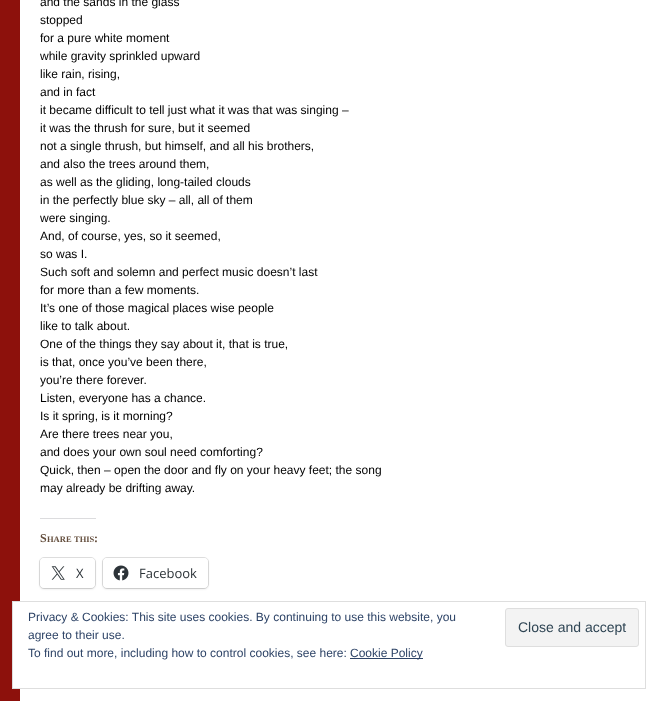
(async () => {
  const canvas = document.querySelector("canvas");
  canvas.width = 658;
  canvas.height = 701;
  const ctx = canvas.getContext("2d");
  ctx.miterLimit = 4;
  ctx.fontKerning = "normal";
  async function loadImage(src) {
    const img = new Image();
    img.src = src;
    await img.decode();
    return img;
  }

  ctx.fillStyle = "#8d110c";
  ctx.fillRect(0, 0, 658, 701);
  ctx.fillStyle = "#ffffff";
  ctx.fillRect(20, 0, 638, 701);
  ctx.fillStyle = "#dcdcde";
  ctx.fillRect(40, 518, 56, 1);
  ctx.beginPath();
  ctx.roundRect(39.5, 557.5, 56, 31, 4.5);
  ctx.strokeStyle = "#e0e0e0";
  ctx.stroke();
  ctx.fillStyle = "rgba(0, 0, 0, 0.12)";
  ctx.filter = "blur(1px)";
  ctx.beginPath();
  ctx.roundRect(40, 559, 55, 30, 4);
  ctx.fill();
  ctx.filter = "none";
  ctx.fillStyle = "#ffffff";
  ctx.beginPath();
  ctx.roundRect(40, 558, 55, 30, 4);
  ctx.fill();
  ctx.drawImage(await loadImage("img/1.png"), 51, 566, 14, 14);
  ctx.beginPath();
  ctx.roundRect(102.5, 557.5, 106, 31, 4.5);
  ctx.stroke();
  ctx.fillStyle = "rgba(0, 0, 0, 0.12)";
  ctx.filter = "blur(1px)";
  ctx.beginPath();
  ctx.roundRect(103, 559, 105, 30, 4);
  ctx.fill();
  ctx.filter = "none";
  ctx.fillStyle = "#ffffff";
  ctx.beginPath();
  ctx.roundRect(103, 558, 105, 30, 4);
  ctx.fill();
  ctx.drawImage(await loadImage("img/2.png"), 113, 565, 16, 16);
  ctx.fillRect(13, 602, 7, 86);
  ctx.strokeStyle = "#dedede";
  ctx.strokeRect(12.5, 601.5, 633, 87);
  ctx.fillStyle = "#f3f3f3";
  ctx.beginPath();
  ctx.roundRect(505.5, 608.5, 133, 38, 2.5);
  ctx.fill();
  ctx.stroke();
  ctx.fillStyle = "#2e4467";
  ctx.fillRect(350, 658, 73, 1);
  ctx.font = "12px Liberation Sans";
  ctx.fillStyle = "#000000";
  for (const [text, x, y] of [
    ["and the sands in the glass", 40, 6],
    ["stopped", 40, 24],
    ["for a pure white moment", 40, 42],
    ["while gravity sprinkled upward", 40, 60],
    ["like rain, rising,", 40, 78],
    ["and in fact", 40, 96],
    ["it became difficult to tell just what it was that was singing –", 40, 114],
    ["it was the thrush for sure, but it seemed", 40, 132],
    ["not a single thrush, but himself, and all his brothers,", 40, 150],
    ["and also the trees around them,", 40, 168],
    ["as well as the gliding, long-tailed clouds", 40, 186],
    ["in the perfectly blue sky – all, all of them", 40, 204],
    ["were singing.", 40, 222],
    ["And, of course, yes, so it seemed,", 40, 240],
    ["so was I.", 40, 258],
    ["Such soft and solemn and perfect music doesn’t last", 40, 276],
    ["for more than a few moments.", 40, 294],
    ["It’s one of those magical places wise people", 40, 312],
    ["like to talk about.", 40, 330],
    ["One of the things they say about it, that is true,", 40, 348],
    ["is that, once you’ve been there,", 40, 366],
    ["you’re there forever.", 40, 384],
    ["Listen, everyone has a chance.", 40, 402],
    ["Is it spring, is it morning?", 40, 420],
    ["Are there trees near you,", 40, 438],
    ["and does your own soul need comforting?", 40, 456],
    ["Quick, then – open the door and fly on your heavy feet; the song", 40, 474],
    ["may already be drifting away.", 40, 492],
  ]) {
    ctx.fillText(text, x, y);
  }
  ctx.font = "bold 12px Liberation Serif";
  ctx.fillStyle = "#644e3d";
  ctx.fillText("S", 40, 542);
  ctx.font = "bold 8.5px Liberation Serif";
  ctx.fillText("HARE", 47, 542);
  ctx.fillText("THIS", 74, 542);
  ctx.font = "bold 12px Liberation Serif";
  ctx.fillText(":", 94, 542);
  ctx.font = "13px Open Sans";
  ctx.fillStyle = "#2c3338";
  ctx.fillText("X", 76, 578);
  ctx.fillText("Facebook", 139, 578);
  ctx.font = "12px Liberation Sans";
  ctx.fillStyle = "#2e4467";
  ctx.fillText("Privacy & Cookies: This site uses cookies. By continuing to use this website, you", 28, 621);
  ctx.fillText("agree to their use.", 28, 639);
  ctx.font = "14px Liberation Sans";
  ctx.fillStyle = "#2e4453";
  ctx.fillText("Close and accept", 518, 632);
  ctx.font = "12px Liberation Sans";
  ctx.fillStyle = "#2e4467";
  ctx.fillText("To find out more, including how to control cookies, see here:", 28, 657);
  ctx.fillText("Cookie Policy", 350, 657);
})();
